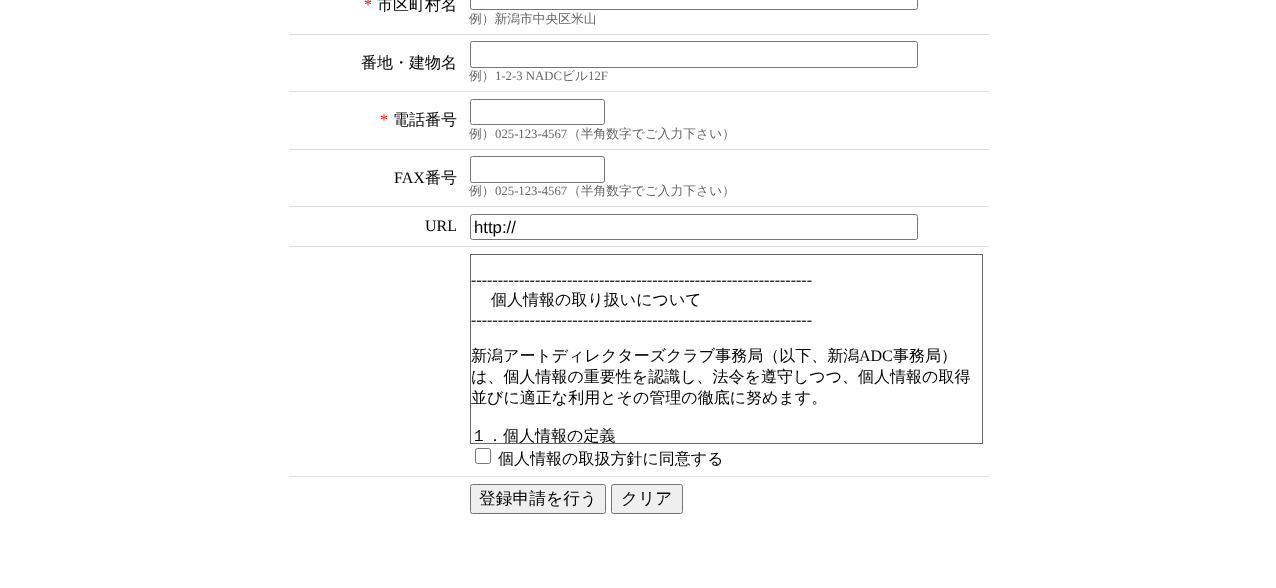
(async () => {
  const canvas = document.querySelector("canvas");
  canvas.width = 1276;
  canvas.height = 588;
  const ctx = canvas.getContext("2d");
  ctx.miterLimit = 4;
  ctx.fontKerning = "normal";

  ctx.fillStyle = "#ffffff";
  ctx.fillRect(0, 0, 1276, 588);
  ctx.beginPath();
  ctx.roundRect(470.5, -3.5, 447, 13, 2);
  ctx.strokeStyle = "#767676";
  ctx.stroke();
  ctx.fillStyle = "#dddddd";
  ctx.fillRect(289, 34, 700, 1);
  ctx.beginPath();
  ctx.roundRect(470.5, 41.5, 447, 26, 2);
  ctx.stroke();
  ctx.fillRect(289, 91, 700, 1);
  ctx.beginPath();
  ctx.roundRect(470.5, 99.5, 134, 25, 2);
  ctx.stroke();
  ctx.fillRect(289, 149, 700, 1);
  ctx.beginPath();
  ctx.roundRect(470.5, 156.5, 134, 26, 2);
  ctx.stroke();
  ctx.fillRect(289, 206, 700, 1);
  ctx.beginPath();
  ctx.roundRect(470.5, 214.5, 447, 25, 2);
  ctx.stroke();
  ctx.fillRect(289, 246, 700, 1);
  ctx.strokeStyle = "#666666";
  ctx.strokeRect(470.5, 254.5, 512, 189);
  ctx.beginPath();
  ctx.roundRect(475.5, 448.5, 15, 15, 2);
  ctx.strokeStyle = "#767676";
  ctx.stroke();
  ctx.fillRect(289, 476, 700, 1);
  ctx.fillStyle = "#efefef";
  ctx.beginPath();
  ctx.roundRect(470.5, 484.5, 135, 29, 2);
  ctx.fill();
  ctx.stroke();
  ctx.beginPath();
  ctx.roundRect(611.5, 484.5, 71, 29, 2);
  ctx.fill();
  ctx.stroke();
  ctx.font = "16px Liberation Serif";
  ctx.fillStyle = "#ff0000";
  ctx.fillText("*", 364, 10);
  ctx.font = "500 16px WenQuanYi Zen Hei";
  ctx.fillStyle = "#000000";
  ctx.fillText("市区町村名", 377, 10);
  ctx.font = "500 12.75px WenQuanYi Zen Hei";
  ctx.fillStyle = "#666666";
  ctx.fillText("例）新潟市中央区米山", 469, 23);
  ctx.font = "500 16px WenQuanYi Zen Hei";
  ctx.fillStyle = "#000000";
  ctx.fillText("番地・建物名", 361, 68);
  ctx.font = "500 12.75px WenQuanYi Zen Hei";
  ctx.fillStyle = "#666666";
  ctx.fillText("例）", 469, 80);
  ctx.font = "12.75px Liberation Serif";
  ctx.fillText("1-2-3 NADC", 495, 80);
  ctx.font = "500 12.75px WenQuanYi Zen Hei";
  ctx.fillText("ビル", 562, 80);
  ctx.font = "12.75px Liberation Serif";
  ctx.fillText("12F", 588, 80);
  ctx.font = "16px Liberation Serif";
  ctx.fillStyle = "#ff0000";
  ctx.fillText("*", 380, 125);
  ctx.font = "500 16px WenQuanYi Zen Hei";
  ctx.fillStyle = "#000000";
  ctx.fillText("電話番号", 393, 125);
  ctx.font = "500 12.75px WenQuanYi Zen Hei";
  ctx.fillStyle = "#666666";
  ctx.fillText("例）", 469, 138);
  ctx.font = "12.75px Liberation Serif";
  ctx.fillText("025-123-4567", 495, 138);
  ctx.font = "500 12.75px WenQuanYi Zen Hei";
  ctx.fillText("（半角数字でご入力下さい）", 568, 138);
  ctx.font = "16px Liberation Serif";
  ctx.fillStyle = "#000000";
  ctx.fillText("FAX", 394, 183);
  ctx.font = "500 16px WenQuanYi Zen Hei";
  ctx.fillText("番号", 425, 183);
  ctx.font = "500 12.75px WenQuanYi Zen Hei";
  ctx.fillStyle = "#666666";
  ctx.fillText("例）", 469, 195);
  ctx.font = "12.75px Liberation Serif";
  ctx.fillText("025-123-4567", 495, 195);
  ctx.font = "500 12.75px WenQuanYi Zen Hei";
  ctx.fillText("（半角数字でご入力下さい）", 568, 195);
  ctx.font = "16px Liberation Serif";
  ctx.fillStyle = "#000000";
  ctx.fillText("URL", 425, 231);
  ctx.font = "16.75px Liberation Sans";
  ctx.fillText("http://", 474, 233);
  ctx.font = "16px Liberation Serif";
  ctx.fillText("----------------------------------------------------------------", 471, 285);
  ctx.font = "500 16px WenQuanYi Zen Hei";
  ctx.fillText("個人情報の取り扱いについて", 491, 305);
  ctx.font = "16px Liberation Serif";
  ctx.fillText("----------------------------------------------------------------", 471, 325);
  ctx.font = "500 16px WenQuanYi Zen Hei";
  ctx.fillText("新潟アートディレクターズクラブ事務局（以下、新潟", 471, 361);
  ctx.font = "16px Liberation Serif";
  ctx.fillText("ADC", 859, 361);
  ctx.font = "500 16px WenQuanYi Zen Hei";
  for (const [text, x, y] of [
    ["事務局）", 893, 361],
    ["は、個人情報の重要性を認識し、法令を遵守しつつ、個人情報の取得", 471, 382],
    ["並びに適正な利用とその管理の徹底に努めます。", 471, 403],
  ]) {
    ctx.fillText(text, x, y);
  }
  ctx.save();
  ctx.beginPath();
  ctx.rect(471, 255, 510, 188);
  ctx.clip();
  ctx.fillText("１．個人情報の定義", 471, 441);
  ctx.restore();
  ctx.fillText("個人情報の取扱方針に同意する", 498, 464);
  ctx.font = "500 16.75px WenQuanYi Zen Hei";
  ctx.fillText("登録申請を行う", 479, 504);
  ctx.fillText("クリア", 621, 504);
})();
